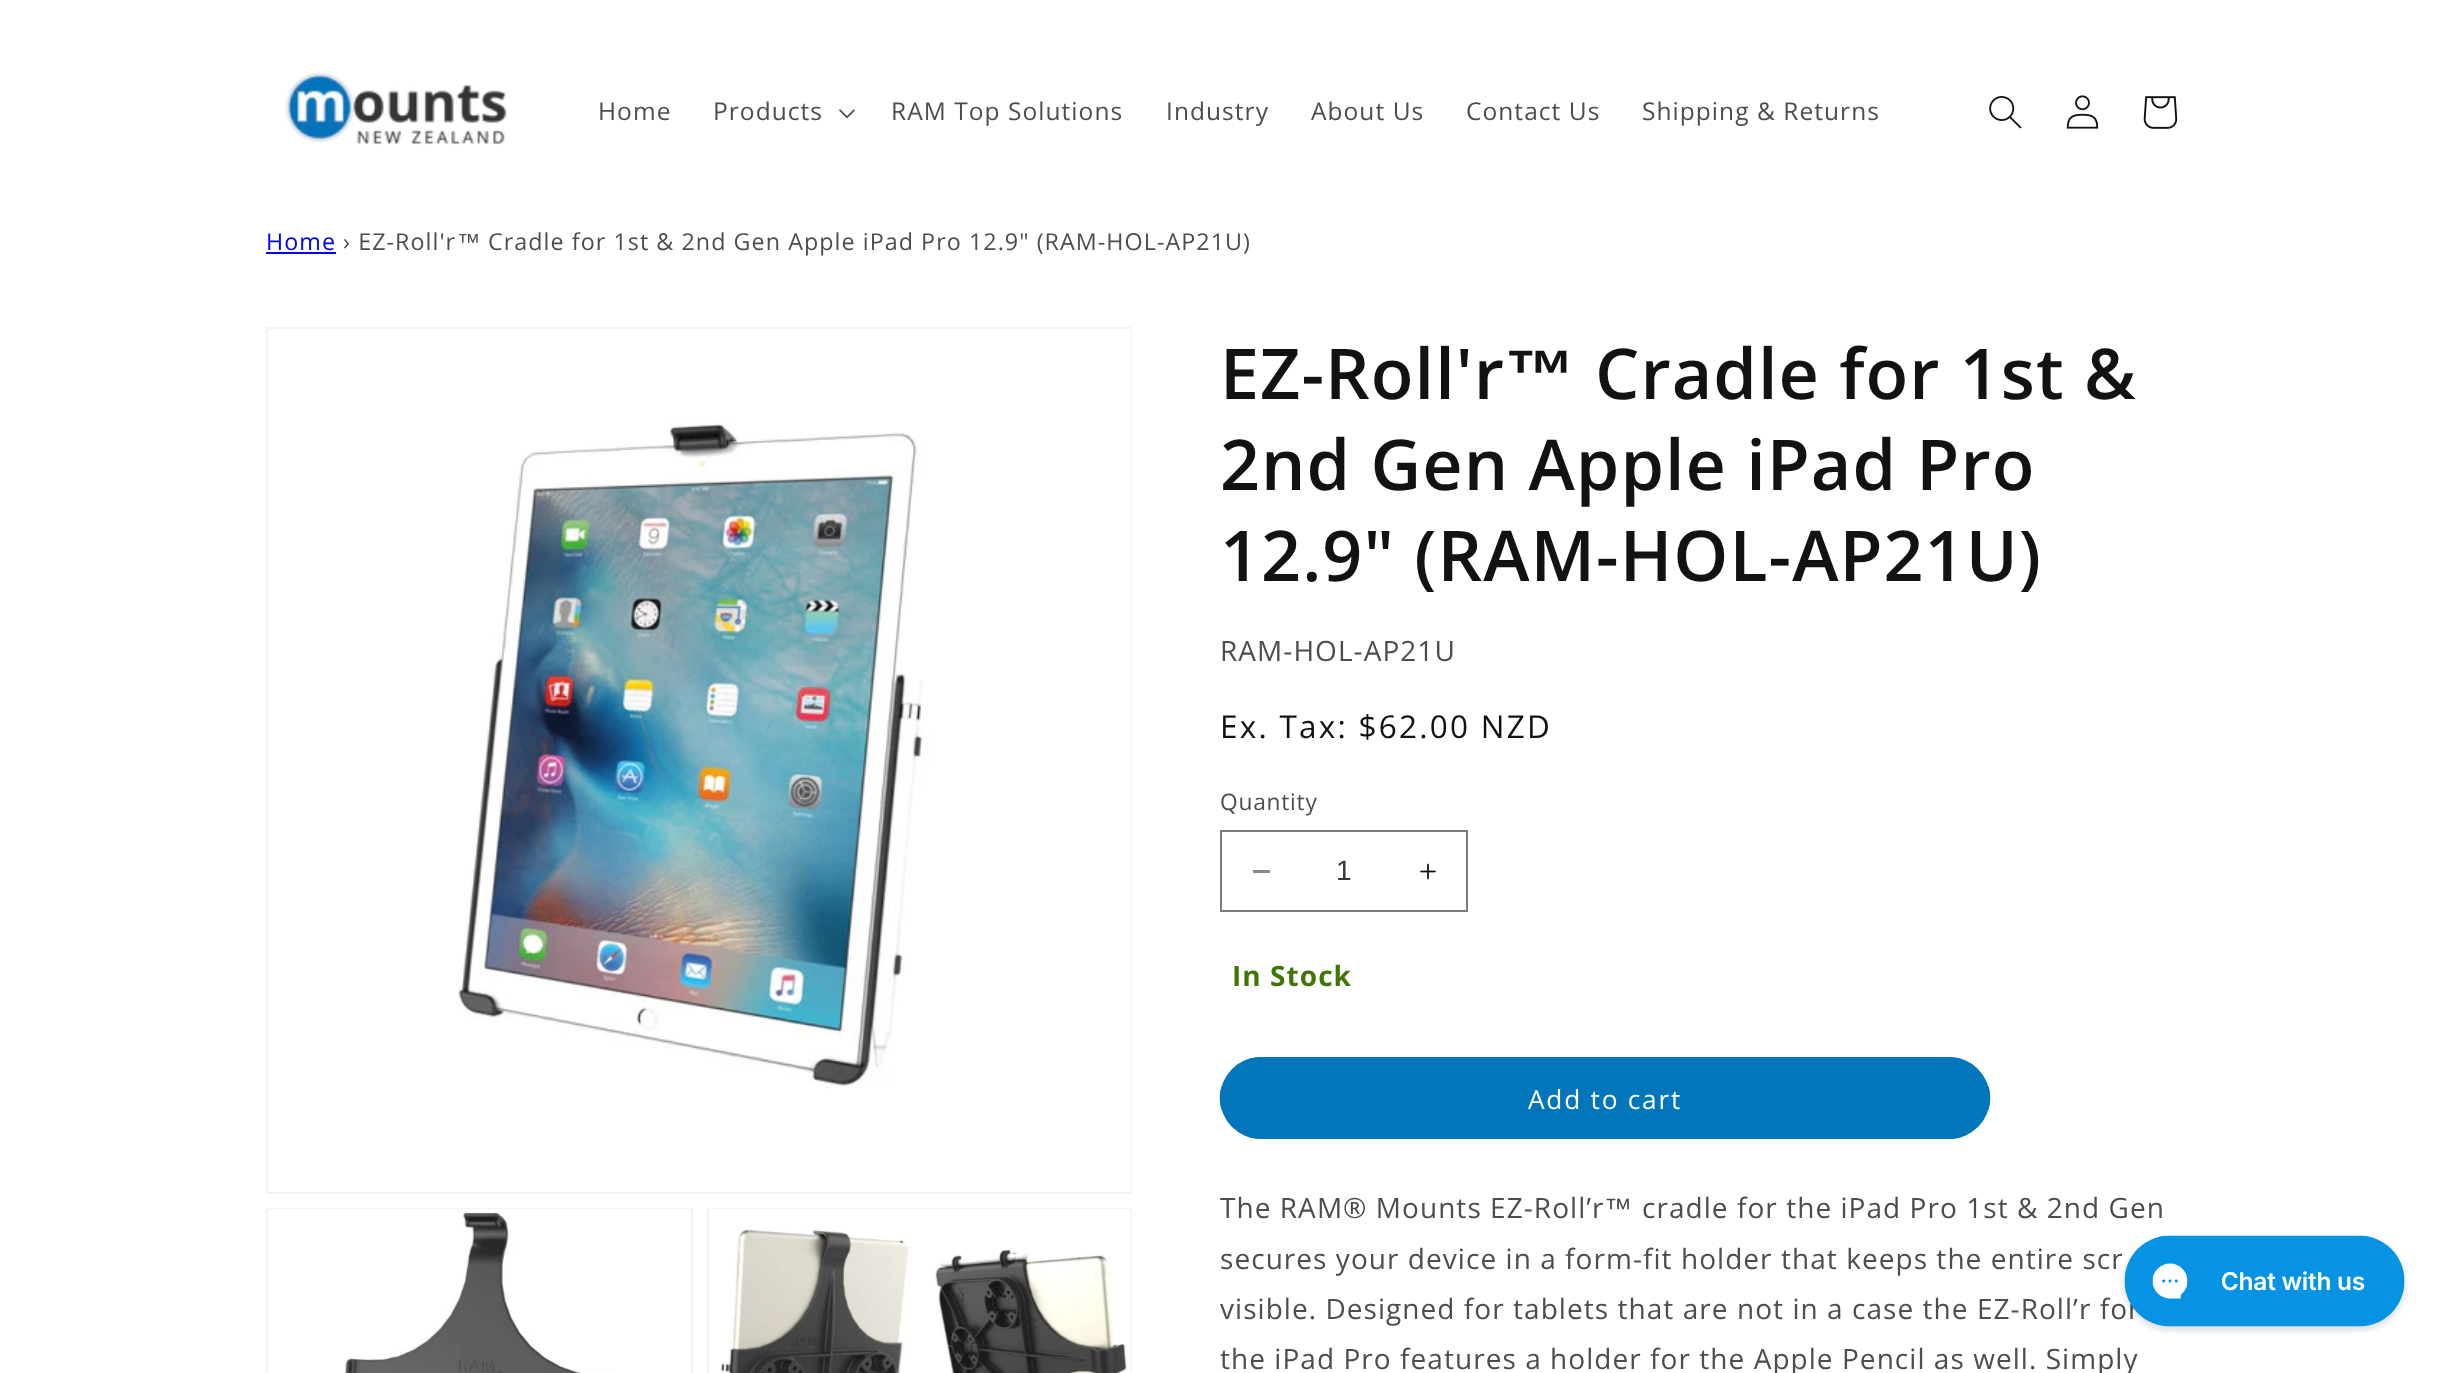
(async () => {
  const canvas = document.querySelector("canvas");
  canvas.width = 2457;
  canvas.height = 1373;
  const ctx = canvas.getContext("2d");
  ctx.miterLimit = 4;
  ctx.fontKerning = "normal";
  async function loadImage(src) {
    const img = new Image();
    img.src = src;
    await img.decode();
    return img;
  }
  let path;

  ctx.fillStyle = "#ffffff";
  ctx.fillRect(0, 0, 2457, 1373);
  ctx.drawImage(await loadImage("img/1.png"), 285, 72, 222, 73);
  ctx.drawImage(await loadImage("img/2.png"), 839, 109, 16, 9);
  ctx.drawImage(await loadImage("img/3.png"), 1989, 96, 33, 33);
  ctx.drawImage(await loadImage("img/4.png"), 2066, 95, 33, 34);
  ctx.drawImage(await loadImage("img/5.png"), 2143, 96, 35, 33);
  ctx.fillStyle = "#0000ee";
  ctx.fillRect(266, 252, 70, 2);
  ctx.strokeStyle = "#f3f3f3";
  ctx.lineWidth = 2;
  ctx.strokeRect(267, 328, 864, 865);
  ctx.drawImage(await loadImage("img/6.png"), 458, 329, 673, 863);
  ctx.strokeRect(267, 1209, 425, 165);
  ctx.drawImage(await loadImage("img/7.png"), 268, 1209, 423, 164);
  ctx.strokeRect(708, 1209, 423, 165);
  ctx.drawImage(await loadImage("img/8.png"), 709, 1209, 422, 164);
  ctx.fillStyle = "#898989";
  ctx.fillRect(1253, 870, 17, 3);
  ctx.drawImage(await loadImage("img/9.png"), 1420, 863, 16, 17);
  ctx.strokeStyle = "#7d7d7d";
  ctx.strokeRect(1221, 831, 246, 80);
  ctx.fillStyle = "#0375ba";
  ctx.beginPath();
  ctx.roundRect(1220, 1057, 770, 82, 41);
  ctx.fill();
  ctx.letterSpacing = "1.05px";
  ctx.font = "24.5px Open Sans";
  ctx.fillStyle = "#4d4d4d";
  for (const [text, x, y] of [
    ["Home", 598, 120],
    ["Products", 713, 120],
    ["RAM Top Solutions", 891, 120],
    ["Industry", 1166, 120],
    ["About Us", 1311, 120],
    ["Contact Us", 1466, 120],
    ["Shipping & Returns", 1642, 120],
  ]) {
    ctx.fillText(text, x, y);
  }
  ctx.font = "23.3px Open Sans";
  ctx.fillStyle = "#0000ee";
  ctx.fillText("Home", 266, 250);
  ctx.fillStyle = "#4d4d4d";
  ctx.fillText("› EZ-Roll'r", 343, 250);
  ctx.font = "23.3px Liberation Sans";
  ctx.fillText("™", 457, 250);
  ctx.font = "23.3px Open Sans";
  ctx.fillText("Cradle for 1st & 2nd Gen Apple iPad Pro 12.9\" (RAM-HOL-AP21U)", 488, 250);
  ctx.font = "600 70px Open Sans";
  ctx.fillStyle = "#121212";
  ctx.fillText("EZ-Roll'r", 1220, 399);
  ctx.font = "bold 70px Liberation Sans";
  ctx.fillText("™", 1505, 399);
  ctx.font = "600 70px Open Sans";
  for (const [text, x, y] of [
    ["Cradle for 1st &", 1595, 399],
    ["2nd Gen Apple iPad Pro", 1220, 490],
    ["12.9\" (RAM-HOL-AP21U)", 1220, 581],
  ]) {
    ctx.fillText(text, x, y);
  }
  ctx.font = "28px Open Sans";
  ctx.fillStyle = "#4d4d4d";
  ctx.fillText("RAM-HOL-AP21U", 1220, 661);
  ctx.letterSpacing = "2.25px";
  ctx.font = "31.5px Open Sans";
  ctx.fillStyle = "#121212";
  ctx.fillText("Ex. Tax: $62.00 NZD", 1220, 738);
  ctx.letterSpacing = "0.75px";
  ctx.font = "22.75px Open Sans";
  ctx.fillStyle = "#4d4d4d";
  ctx.fillText("Quantity", 1220, 810);
  ctx.letterSpacing = "0px";
  ctx.font = "28px Liberation Sans";
  ctx.fillStyle = "#363636";
  ctx.fillText("1", 1336, 880);
  ctx.letterSpacing = "1.05px";
  ctx.font = "bold 28px Open Sans";
  ctx.fillStyle = "#417505";
  ctx.fillText("In Stock", 1232, 986);
  ctx.letterSpacing = "1.75px";
  ctx.font = "26.25px Open Sans";
  ctx.fillStyle = "#ffffff";
  ctx.fillText("Add to cart", 1528, 1109);
  ctx.fillStyle = "#0375ba";
  path = new Path2D("M1261 1139H1949C1953 1139 1958 1138 1962 1137H1248C1252 1138 1257 1139 1261 1139ZM1222 1111C1219 1102 1219 1094 1222 1085ZM1261 1057C1257 1057 1252 1058 1248 1059H1962C1958 1058 1953 1057 1949 1057ZM1988 1085V1111C1991 1102 1991 1094 1988 1085Z");
  ctx.fill(path, "evenodd");
  ctx.letterSpacing = "1.05px";
  ctx.font = "28px Open Sans";
  ctx.fillStyle = "#4d4d4d";
  ctx.fillText("The RAM® Mounts EZ-Roll’r", 1220, 1218);
  ctx.font = "28px Liberation Sans";
  ctx.fillText("™", 1604, 1218);
  ctx.font = "28px Open Sans";
  for (const [text, x, y] of [
    ["cradle for the iPad Pro 1st & 2nd Gen", 1642, 1218],
    ["secures your device in a form-fit holder that keeps the entire scr", 1220, 1269],
    ["visible. Designed for tablets that are not in a case the EZ-Roll’r for", 1220, 1319],
    ["the iPad Pro features a holder for the Apple Pencil as well. Simply", 1220, 1369],
  ]) {
    ctx.fillText(text, x, y);
  }
  ctx.drawImage(await loadImage("img/10.png"), 2121, 1235, 287, 99);
})();
